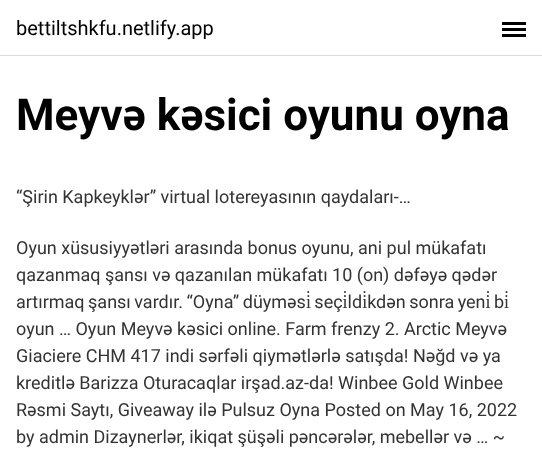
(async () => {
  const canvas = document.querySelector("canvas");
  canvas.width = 542;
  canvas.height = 449;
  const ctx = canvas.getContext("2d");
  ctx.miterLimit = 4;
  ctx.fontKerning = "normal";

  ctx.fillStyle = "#ffffff";
  ctx.fillRect(0, 0, 542, 449);
  for (const [x, y, w, h, color] of [
    [0, 55, 542, 1, "#dbdbdb"],
    [502, 28, 24, 3, "#000000"],
    [502, 22, 24, 3, "#000000"],
    [502, 34, 24, 3, "#000000"],
  ]) {
    ctx.fillStyle = color;
    ctx.fillRect(x, y, w, h);
  }
  ctx.font = "20px Roboto";
  ctx.fillText("bettiltshkfu.netlify.app", 16, 35);
  ctx.font = "bold 44px Roboto";
  ctx.fillText("Meyvə kəsici oyunu oyna", 16, 130);
  ctx.font = "18px Roboto";
  ctx.fillStyle = "#333333";
  for (const [text, x, y] of [
    ["“Şirin Kapkeyklər” virtual lotereyasının qaydaları-…", 16, 203],
    ["Oyun xüsusiyyətləri arasında bonus oyunu, ani pul mükafatı", 16, 254],
    ["qazanmaq şansı və qazanılan mükafatı 10 (on) dəfəyə qədər", 16, 281],
  ]) {
    ctx.fillText(text, x, y);
  }
  ctx.wordSpacing = "-1px";
  ctx.fillText("artırmaq şansı vardır. “Oyna” düyməsi̇ seçi̇ldi̇kdən sonra yeni̇ bi̇", 16, 308);
  ctx.wordSpacing = "0px";
  for (const [text, x, y] of [
    ["oyun … Oyun Meyvə kəsici online. Farm frenzy 2. Arctic Meyvə", 16, 335],
    ["Giaciere CHM 417 indi sərfəli qiymətlərlə satışda! Nəğd və ya", 16, 362],
    ["kreditlə Barizza Oturacaqlar irşad.az-da! Winbee Gold Winbee", 16, 389],
    ["Rəsmi Saytı, Giveaway ilə Pulsuz Oyna Posted on May 16, 2022", 16, 416],
    ["by admin Dizaynerlər, ikiqat şüşəli pəncərələr, mebellər və … ~", 16, 443],
  ]) {
    ctx.fillText(text, x, y);
  }
})();
